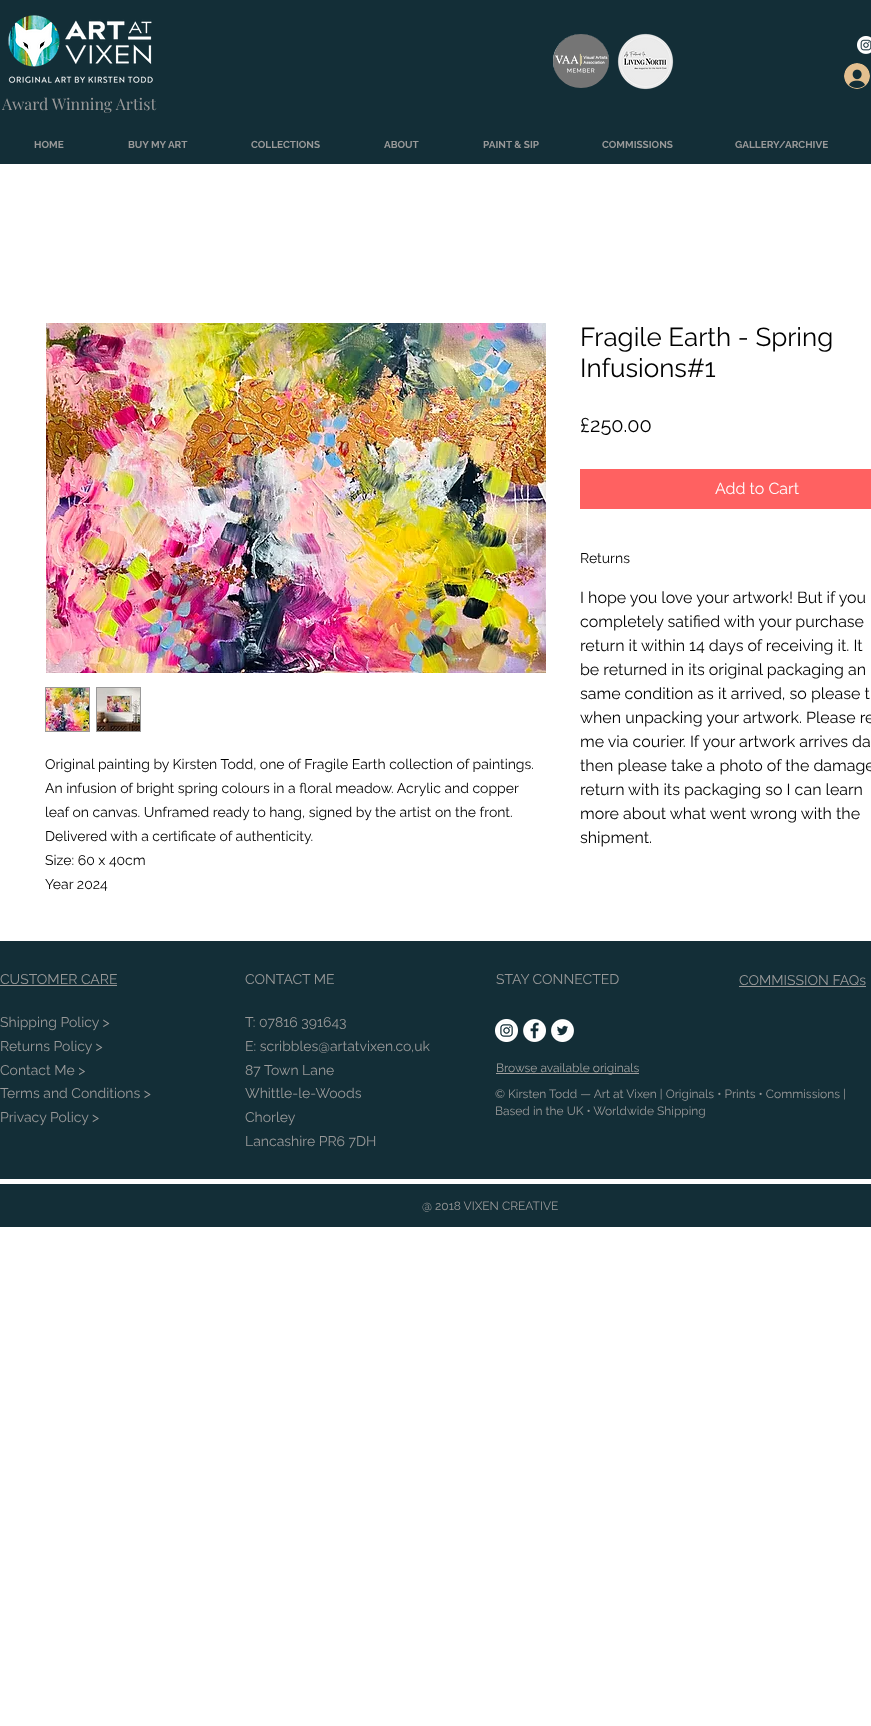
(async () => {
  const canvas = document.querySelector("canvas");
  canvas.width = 871;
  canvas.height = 1726;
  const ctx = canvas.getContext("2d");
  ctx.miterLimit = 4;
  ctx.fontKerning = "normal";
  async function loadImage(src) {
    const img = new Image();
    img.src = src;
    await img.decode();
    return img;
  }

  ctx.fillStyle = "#ffffff";
  ctx.fillRect(0, 0, 871, 1726);
  ctx.fillStyle = "#132e37";
  ctx.fillRect(0, 0, 871, 164);
  ctx.drawImage(await loadImage("img/1.png"), 8, 15, 145, 68);
  ctx.drawImage(await loadImage("img/2.png"), 553, 34, 56, 54);
  ctx.drawImage(await loadImage("img/3.png"), 617, 33, 57, 57);
  ctx.drawImage(await loadImage("img/4.png"), 857, 36, 14, 18);
  ctx.drawImage(await loadImage("img/5.png"), 844, 63, 26, 26);
  ctx.drawImage(await loadImage("img/6.png"), 46, 323, 500, 350);
  ctx.fillStyle = "#999999";
  ctx.fillRect(45, 687, 45, 45);
  ctx.drawImage(await loadImage("img/7.png"), 46, 688, 43, 43);
  ctx.fillRect(96, 687, 45, 45);
  ctx.drawImage(await loadImage("img/8.png"), 97, 688, 43, 43);
  for (const [x, y, w, h, color] of [
    [580, 469, 291, 40, "#ff6161"],
    [0, 941, 871, 238, "#132e37"],
    [0, 985, 117, 1, "#999999"],
  ]) {
    ctx.fillStyle = color;
    ctx.fillRect(x, y, w, h);
  }
  ctx.drawImage(await loadImage("img/9.png"), 495, 1019, 23, 23);
  ctx.drawImage(await loadImage("img/10.png"), 523, 1019, 23, 23);
  ctx.drawImage(await loadImage("img/11.png"), 551, 1019, 23, 23);
  for (const [x, y, w, h, color] of [
    [739, 986, 127, 1, "#999999"],
    [496, 1073, 143, 1, "#a0a09f"],
    [0, 1184, 871, 43, "#132e37"],
  ]) {
    ctx.fillStyle = color;
    ctx.fillRect(x, y, w, h);
  }
  ctx.font = "16px Playfair Display";
  ctx.fillStyle = "#999999";
  ctx.fillText("Award Winning Artist", 2, 110);
  ctx.font = "bold 10px Raleway";
  for (const [text, x, y] of [
    ["HOME", 34, 148],
    ["BUY MY ART", 128, 148],
    ["COLLECTIONS", 251, 148],
    ["ABOUT", 384, 148],
    ["PAINT & SIP", 483, 148],
    ["COMMISSIONS", 602, 148],
    ["GALLERY/ARCHIVE", 735, 148],
  ]) {
    ctx.fillText(text, x, y);
  }
  ctx.font = "14px Raleway";
  ctx.fillStyle = "#000000";
  for (const [text, x, y] of [
    ["Original painting by Kirsten Todd, one of Fragile Earth collection of paintings.", 45, 769],
    ["An infusion of bright spring colours in a floral meadow. Acrylic and copper", 45, 793],
    ["leaf on canvas. Unframed ready to hang, signed by the artist on the front.", 45, 817],
    ["Delivered with a certificate of authenticity.", 45, 841],
    ["Size: 60 x 40cm", 45, 865],
    ["Year 2024", 45, 889],
  ]) {
    ctx.fillText(text, x, y);
  }
  ctx.font = "26px Raleway";
  ctx.fillText("Fragile Earth - Spring", 580, 346);
  ctx.fillText("Infusions#1", 580, 377);
  ctx.font = "20px Raleway";
  ctx.fillText("£250.00", 580, 432);
  ctx.font = "16px Raleway";
  ctx.fillStyle = "#ffffff";
  ctx.fillText("Add to Cart", 715, 494);
  ctx.font = "14px Raleway";
  ctx.fillStyle = "#000000";
  ctx.fillText("Returns", 580, 563);
  ctx.font = "16px Raleway";
  for (const [text, x, y] of [
    ["I hope you love your artwork! But if you", 580, 603],
    ["completely satified with your purchase", 580, 627],
    ["return it within 14 days of receiving it. It", 580, 651],
    ["be returned in its original packaging an", 580, 675],
    ["same condition as it arrived, so please t", 580, 699],
    ["when unpacking your artwork. Please re", 580, 723],
    ["me via courier. If your artwork arrives da", 580, 747],
    ["then please take a photo of the damage", 580, 771],
    ["return with its packaging so I can learn", 580, 795],
    ["more about what went wrong with the", 580, 819],
    ["shipment.", 580, 843],
  ]) {
    ctx.fillText(text, x, y);
  }
  ctx.font = "14px Raleway";
  ctx.fillStyle = "#999999";
  for (const [text, x, y] of [
    ["CUSTOMER CARE", 0, 984],
    ["Shipping Policy >", 0, 1027],
    ["Returns Policy >", 0, 1051],
    ["Contact Me >", 0, 1075],
    ["Terms and Conditions >", 0, 1098],
    ["Privacy Policy >", 0, 1122],
    ["CONTACT ME", 245, 984],
    ["T: 07816 391643", 245, 1027],
    ["E: scribbles@artatvixen.co,uk", 245, 1051],
    ["87 Town Lane", 245, 1075],
    ["Whittle-le-Woods", 245, 1098],
    ["Chorley", 245, 1122],
    ["Lancashire PR6 7DH", 245, 1146],
    ["STAY CONNECTED", 496, 984],
    ["COMMISSION FAQs", 739, 985],
  ]) {
    ctx.fillText(text, x, y);
  }
  ctx.font = "12px Raleway";
  ctx.fillStyle = "#a0a09f";
  ctx.fillText("Browse available originals", 496, 1072);
  ctx.fillStyle = "#999999";
  for (const [text, x, y] of [
    ["© Kirsten Todd — Art at Vixen | Originals • Prints • Commissions |", 495, 1098],
    ["Based in the UK • Worldwide Shipping", 495, 1115],
    ["@ 2018 VIXEN CREATIVE", 422, 1210],
  ]) {
    ctx.fillText(text, x, y);
  }
})();
